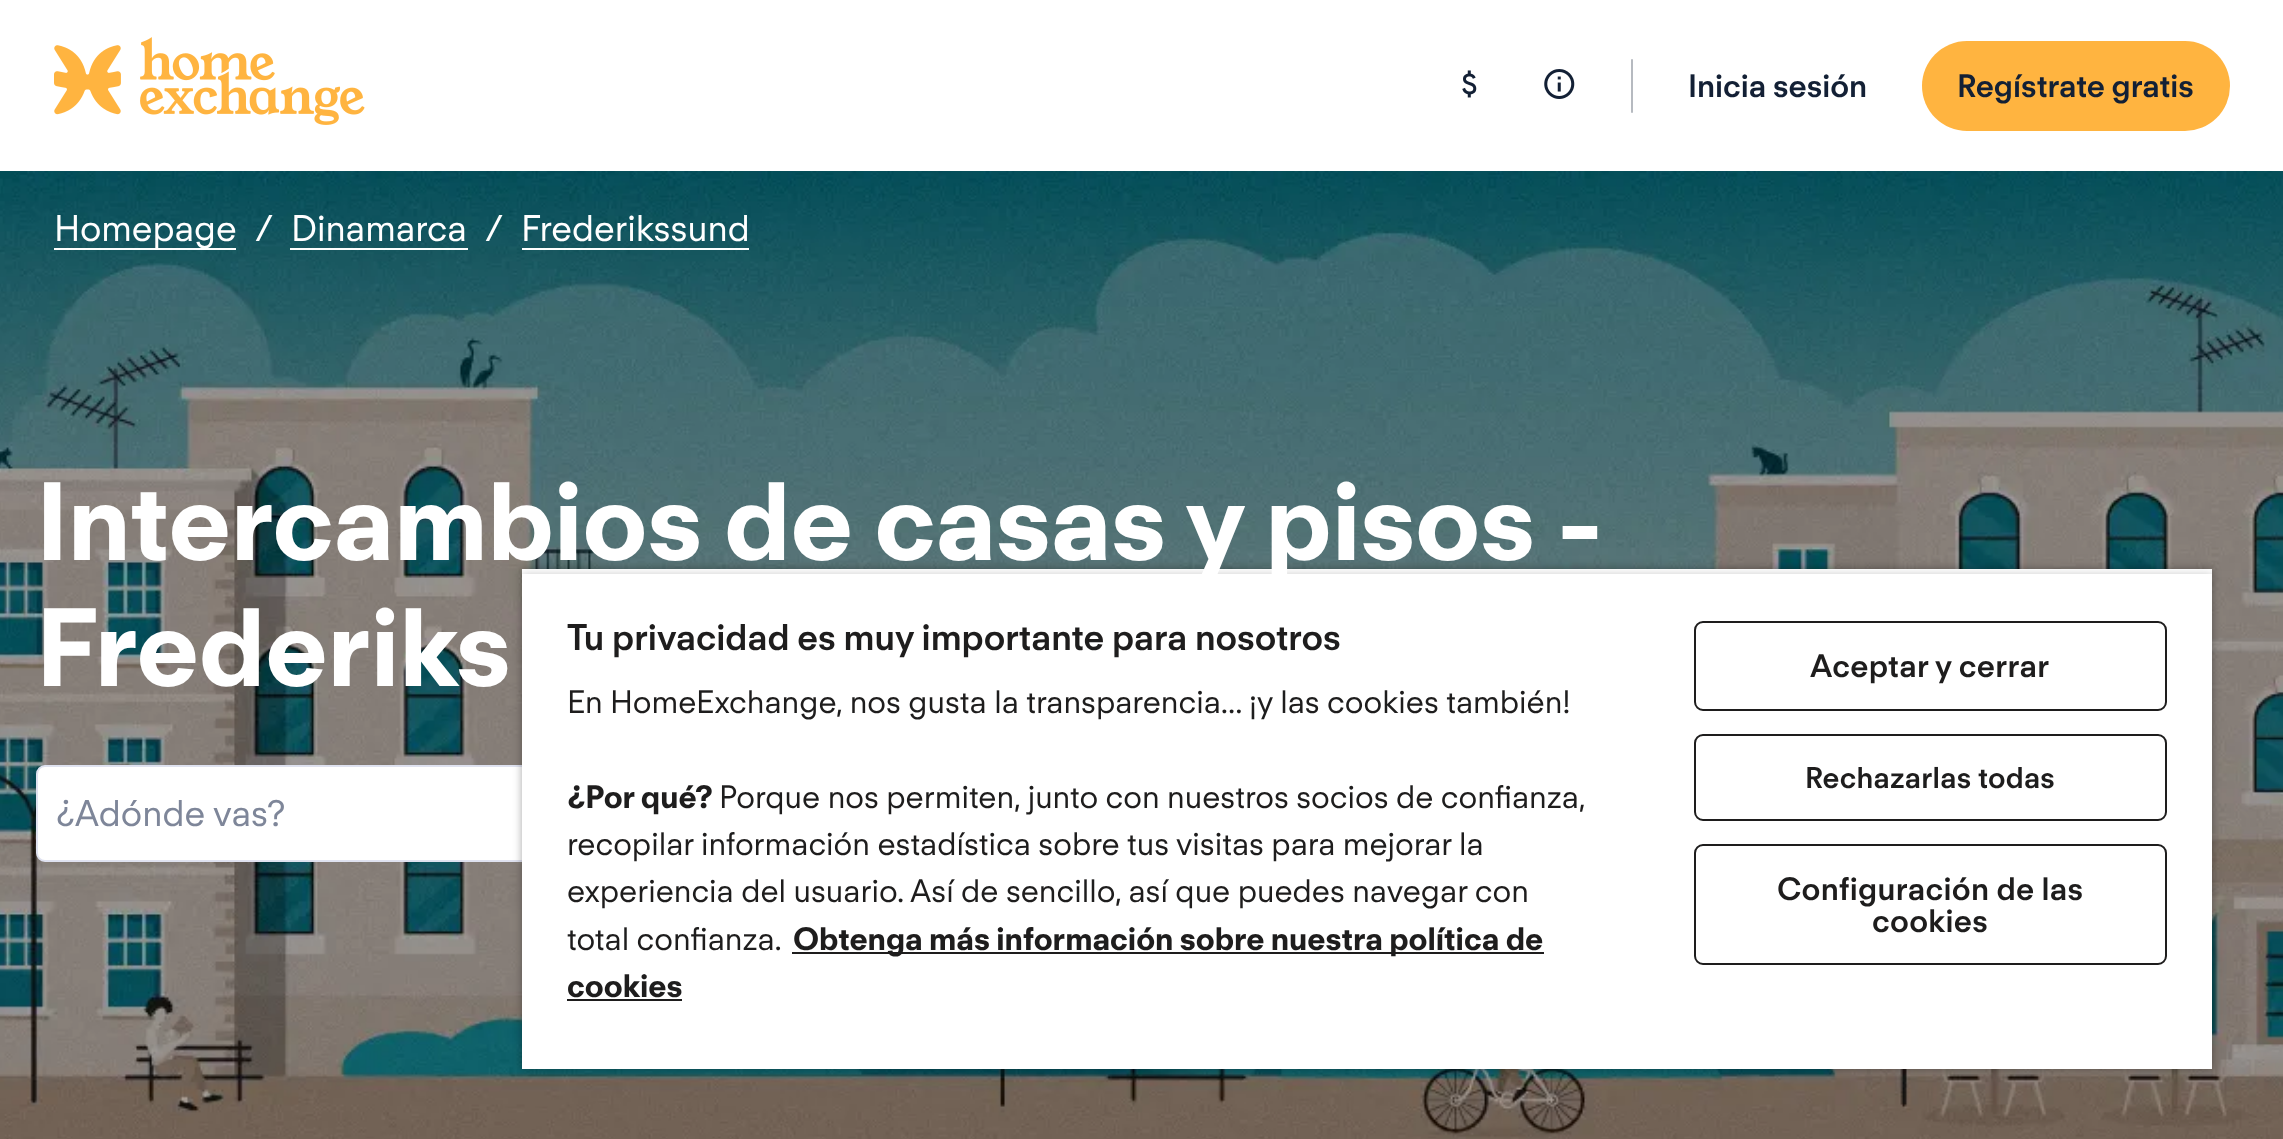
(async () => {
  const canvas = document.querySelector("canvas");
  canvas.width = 2283;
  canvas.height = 1139;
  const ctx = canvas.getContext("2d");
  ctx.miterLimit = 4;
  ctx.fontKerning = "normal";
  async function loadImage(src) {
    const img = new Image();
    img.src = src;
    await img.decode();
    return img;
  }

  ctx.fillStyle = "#ffffff";
  ctx.fillRect(0, 0, 2283, 1139);
  ctx.drawImage(await loadImage("img/1.png"), 54, 37, 311, 88);
  ctx.drawImage(await loadImage("img/2.png"), 1462, 70, 15, 28);
  ctx.drawImage(await loadImage("img/3.png"), 1544, 69, 31, 30);
  ctx.fillStyle = "#b6bac0";
  ctx.beginPath();
  ctx.roundRect(1631, 59, 2, 54, 1);
  ctx.fill();
  ctx.fillStyle = "#ffb440";
  ctx.beginPath();
  ctx.roundRect(1922, 41, 308, 90, 45);
  ctx.fill();
  ctx.drawImage(await loadImage("img/4.png"), 0, 171, 2283, 968);
  for (const [x, y, w, h, color] of [
    [54, 248, 182, 2, "#ffffff"],
    [290, 248, 178, 2, "#ffffff"],
    [522, 248, 227, 2, "#ffffff"],
  ]) {
    ctx.fillStyle = color;
    ctx.fillRect(x, y, w, h);
  }
  ctx.beginPath();
  ctx.roundRect(37, 766, 880, 95, [8, 0, 0, 8]);
  ctx.fill();
  ctx.strokeStyle = "#dfe2f0";
  ctx.lineWidth = 2;
  ctx.stroke();
  ctx.fillStyle = "rgba(0, 0, 0, 0.35)";
  ctx.filter = "blur(4.5px)";
  ctx.beginPath();
  ctx.rect(522, 569, 1690, 500);
  ctx.fill();
  ctx.filter = "none";
  ctx.fillStyle = "#ffffff";
  ctx.fillRect(522, 569, 1690, 5);
  ctx.save();
  ctx.beginPath();
  ctx.rect(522, 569, 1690, 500);
  ctx.clip();
  ctx.fillStyle = "rgba(0, 0, 0, 0.2)";
  ctx.filter = "blur(4.5px)";
  ctx.beginPath();
  ctx.rect(522, 574, 1690, 495);
  ctx.fill();
  ctx.filter = "none";
  ctx.restore();
  for (const [x, y, w, h, color] of [
    [522, 574, 1690, 495, "#ffffff"],
    [792, 952, 752, 2, "#1e1d1d"],
    [567, 999, 115, 2, "#1e1d1d"],
  ]) {
    ctx.fillStyle = color;
    ctx.fillRect(x, y, w, h);
  }
  ctx.beginPath();
  ctx.roundRect(1695, 622, 471, 88, 8);
  ctx.strokeStyle = "#1e1d1d";
  ctx.stroke();
  ctx.beginPath();
  ctx.roundRect(1695, 735, 471, 85, 8);
  ctx.stroke();
  ctx.beginPath();
  ctx.roundRect(1695, 845, 471, 119, 8);
  ctx.stroke();
  ctx.font = "600 31.5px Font";
  ctx.fillStyle = "#132035";
  ctx.fillText("Inicia sesión", 1688, 97);
  ctx.fillText("Regístrate gratis", 1957, 97);
  ctx.font = "36px Font";
  ctx.fillStyle = "#ffffff";
  for (const [text, x, y] of [
    ["Homepage", 54, 241],
    ["/", 255, 241],
    ["Dinamarca", 291, 241],
    ["/", 485, 241],
    ["Frederikssund", 521, 241],
  ]) {
    ctx.fillText(text, x, y);
  }
  ctx.font = "bold 108px Font";
  ctx.fillText("Intercambios de casas y pisos -", 36, 560);
  ctx.fillText("Frederiks", 36, 686);
  ctx.font = "36px Font";
  ctx.fillStyle = "#7e8699";
  ctx.fillText("¿Adónde vas?", 56, 826);
  ctx.font = "600 36px Font";
  ctx.fillStyle = "#1e1d1d";
  ctx.fillText("Tu privacidad es muy importante para nosotros", 567, 650);
  ctx.font = "31.5px Font";
  ctx.fillText("En HomeExchange, nos gusta la transparencia... ¡y las cookies también!", 567, 713);
  ctx.font = "bold 31.5px Font";
  ctx.fillText("¿Por qué?", 567, 808);
  ctx.font = "31.5px Font";
  for (const [text, x, y] of [
    ["Porque nos permiten, junto con nuestros socios de confianza,", 719, 808],
    ["recopilar información estadística sobre tus visitas para mejorar la", 567, 855],
    ["experiencia del usuario. Así de sencillo, así que puedes navegar con", 567, 902],
    ["total confianza.", 567, 950],
  ]) {
    ctx.fillText(text, x, y);
  }
  ctx.font = "bold 31.5px Font";
  ctx.fillText("Obtenga más información sobre nuestra política de", 793, 950);
  ctx.fillText("cookies", 567, 997);
  ctx.letterSpacing = "0.3px";
  ctx.font = "600 31.5px Font";
  ctx.fillText("Aceptar y cerrar", 1810, 677);
  ctx.letterSpacing = "0.25px";
  ctx.font = "600 29.25px Font";
  ctx.fillText("Rechazarlas todas", 1805, 788);
  ctx.letterSpacing = "0.3px";
  ctx.font = "600 31.5px Font";
  ctx.fillText("Configuración de las", 1777, 900);
  ctx.fillText("cookies", 1872, 932);
})();
